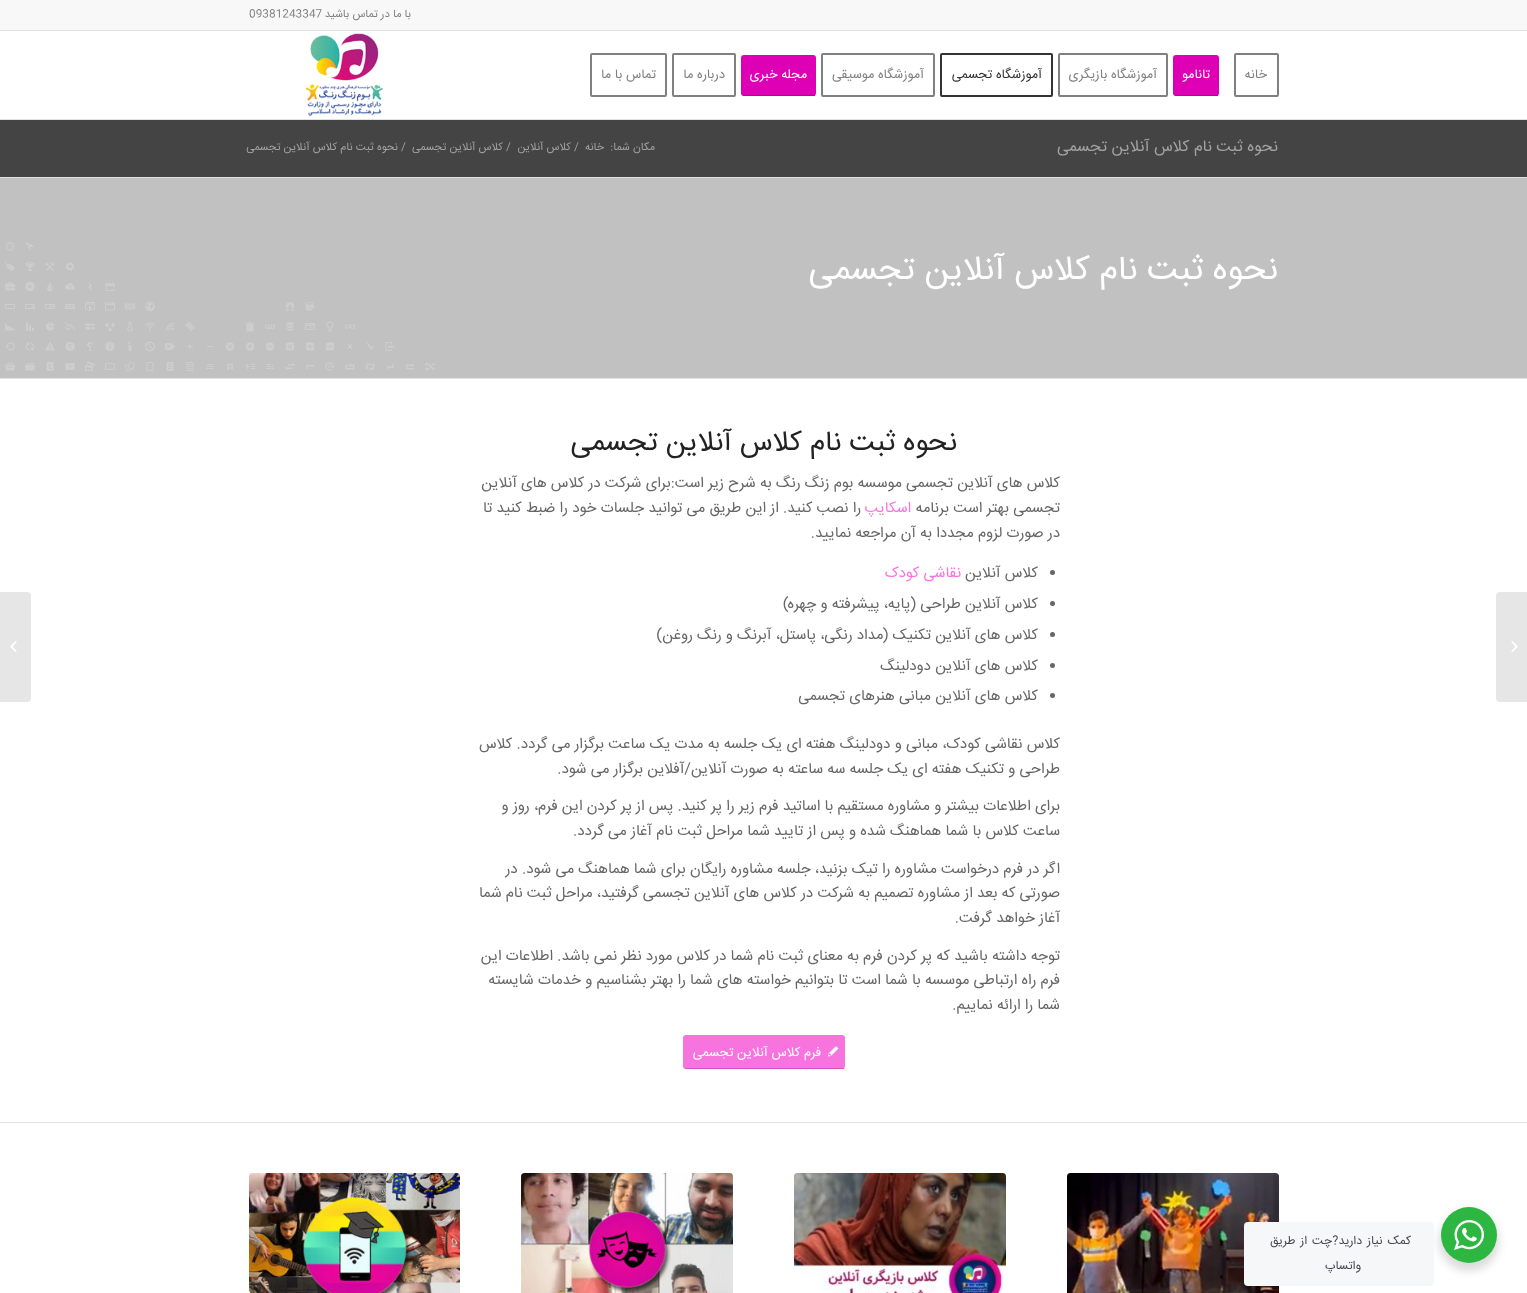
(async () => {
  const canvas = document.querySelector("canvas");
  canvas.width = 1527;
  canvas.height = 1293;
  const ctx = canvas.getContext("2d");
  ctx.miterLimit = 4;
  ctx.fontKerning = "normal";
  async function loadImage(src) {
    const img = new Image();
    img.src = src;
    await img.decode();
    return img;
  }

  ctx.fillStyle = "#ffffff";
  ctx.fillRect(0, 0, 1527, 1293);
  for (const [x, y, w, h, color] of [
    [0, 0, 1527, 30, "#f8f8f8"],
    [0, 30, 1527, 1, "#e1e1e1"],
    [0, 119, 1527, 1, "#e1e1e1"],
  ]) {
    ctx.fillStyle = color;
    ctx.fillRect(x, y, w, h);
  }
  ctx.beginPath();
  ctx.roundRect(1235, 54, 43, 42, 1);
  ctx.strokeStyle = "#808080";
  ctx.lineWidth = 2;
  ctx.stroke();
  ctx.fillStyle = "#de00b5";
  ctx.beginPath();
  ctx.roundRect(1173, 55, 46, 41, 3);
  ctx.fill();
  ctx.fillStyle = "#bc0093";
  ctx.fillRect(1175, 95, 43, 1);
  ctx.beginPath();
  ctx.roundRect(1059, 54, 108, 42, 1);
  ctx.stroke();
  ctx.beginPath();
  ctx.roundRect(941, 54, 111, 42, 1);
  ctx.strokeStyle = "#333333";
  ctx.stroke();
  ctx.beginPath();
  ctx.roundRect(822, 54, 112, 42, 1);
  ctx.strokeStyle = "#808080";
  ctx.stroke();
  ctx.fillStyle = "#de00b5";
  ctx.beginPath();
  ctx.roundRect(741, 55, 75, 41, 3);
  ctx.fill();
  ctx.fillStyle = "#bc0093";
  ctx.fillRect(743, 95, 72, 1);
  ctx.beginPath();
  ctx.roundRect(673, 54, 62, 42, 1);
  ctx.stroke();
  ctx.beginPath();
  ctx.roundRect(591, 54, 75, 42, 1);
  ctx.stroke();
  ctx.drawImage(await loadImage("img/1.png"), 305, 33, 78, 84);
  ctx.fillStyle = "#e6e6e6";
  ctx.beginPath();
  ctx.roundRect(1496, 592, 31, 110, [4, 0, 0, 4]);
  ctx.fill();
  ctx.drawImage(await loadImage("img/2.png"), 1511, 641, 7, 11);
  ctx.fillStyle = "#444444";
  ctx.fillRect(0, 120, 1527, 57);
  ctx.fillStyle = "#c1c1c1";
  ctx.fillRect(0, 178, 1527, 200);
  ctx.drawImage(await loadImage("img/3.png"), 5, 242, 430, 130);
  ctx.fillStyle = "#e1e1e1";
  ctx.fillRect(0, 177, 1527, 1);
  ctx.fillRect(0, 378, 1527, 1);
  ctx.fillStyle = "#666666";
  ctx.beginPath();
  ctx.arc(1052.5, 572.5, 2.5, 0, Math.PI * 2);
  ctx.fill();
  ctx.beginPath();
  ctx.arc(1052.5, 603.5, 2.5, 0, Math.PI * 2);
  ctx.fill();
  ctx.beginPath();
  ctx.arc(1052.5, 634.5, 2.5, 0, Math.PI * 2);
  ctx.fill();
  ctx.beginPath();
  ctx.arc(1052.5, 665.5, 2.5, 0, Math.PI * 2);
  ctx.fill();
  ctx.beginPath();
  ctx.arc(1052.5, 695.5, 2.5, 0, Math.PI * 2);
  ctx.fill();
  ctx.fillStyle = "#f774df";
  ctx.beginPath();
  ctx.roundRect(683, 1035, 162, 34, 3);
  ctx.fill();
  ctx.fillStyle = "#d552bd";
  ctx.fillRect(685, 1068, 159, 1);
  ctx.drawImage(await loadImage("img/4.png"), 828, 1046, 11, 11);
  ctx.fillStyle = "#e1e1e1";
  ctx.fillRect(0, 1122, 1527, 1);
  ctx.fillStyle = "#f8f8f8";
  ctx.beginPath();
  ctx.roundRect(1067, 1173, 212, 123, 3);
  ctx.fill();
  ctx.drawImage(await loadImage("img/5.png"), 1067, 1173, 212, 120);
  ctx.beginPath();
  ctx.roundRect(794, 1173, 212, 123, 3);
  ctx.fill();
  ctx.drawImage(await loadImage("img/6.png"), 794, 1173, 212, 120);
  ctx.beginPath();
  ctx.roundRect(521, 1173, 212, 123, 3);
  ctx.fill();
  ctx.drawImage(await loadImage("img/7.png"), 521, 1173, 212, 120);
  ctx.beginPath();
  ctx.roundRect(249, 1173, 211, 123, 3);
  ctx.fill();
  ctx.drawImage(await loadImage("img/8.png"), 249, 1173, 211, 120);
  ctx.fillStyle = "#e6e6e6";
  ctx.beginPath();
  ctx.roundRect(0, 592, 31, 110, [0, 4, 4, 0]);
  ctx.fill();
  ctx.drawImage(await loadImage("img/9.png"), 10, 641, 7, 11);
  ctx.fillStyle = "rgba(0, 0, 0, 0.14)";
  ctx.filter = "blur(4px)";
  ctx.beginPath();
  ctx.roundRect(1439, 1211, 60, 60, 30);
  ctx.fill();
  ctx.filter = "none";
  ctx.fillStyle = "#2db742";
  ctx.beginPath();
  ctx.arc(1469, 1235, 28, 0, Math.PI * 2);
  ctx.fill();
  ctx.drawImage(await loadImage("img/10.png"), 1454, 1220, 30, 30);
  ctx.fillStyle = "#f5f7f9";
  ctx.beginPath();
  ctx.roundRect(1244, 1222, 190, 64, 4);
  ctx.fill();
  ctx.direction = "rtl";
  ctx.font = "11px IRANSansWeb";
  ctx.fillStyle = "#808080";
  ctx.fillText("با ما در تماس باشید", 411, 17);
  ctx.direction = "ltr";
  ctx.fillText("09381243347", 249, 17);
  ctx.direction = "rtl";
  ctx.font = "13px IRANSansWeb";
  ctx.fillText("خانه", 1267, 78);
  ctx.fillStyle = "#ffffff";
  ctx.fillText("تانامو", 1210, 78);
  ctx.fillStyle = "#808080";
  ctx.fillText("آموزشگاه بازیگری", 1157, 78);
  ctx.fillStyle = "#333333";
  ctx.fillText("آموزشگاه تجسمی", 1042, 78);
  ctx.fillStyle = "#808080";
  ctx.fillText("آموزشگاه موسیقی", 924, 78);
  ctx.fillStyle = "#ffffff";
  ctx.fillText("مجله خبری", 807, 78);
  ctx.fillStyle = "#808080";
  ctx.fillText("درباره ما", 725, 78);
  ctx.fillText("تماس با ما", 656, 78);
  ctx.font = "16px IRANSansWeb";
  ctx.fillStyle = "#a2a2a2";
  ctx.fillText("نحوه ثبت نام کلاس آنلاین تجسمی", 1278, 151);
  ctx.font = "11px IRANSansWeb";
  ctx.fillText("مکان شما:", 655, 150);
  ctx.fillText("خانه", 604, 150);
  ctx.direction = "ltr";
  ctx.fillText("/", 574, 150);
  ctx.direction = "rtl";
  ctx.fillText("کلاس آنلاین", 571, 150);
  ctx.direction = "ltr";
  ctx.fillText("/", 506, 150);
  ctx.direction = "rtl";
  ctx.fillText("کلاس آنلاین تجسمی", 503, 150);
  ctx.direction = "ltr";
  ctx.fillText("/", 401, 150);
  ctx.direction = "rtl";
  ctx.fillText("نحوه ثبت نام کلاس آنلاین تجسمی", 398, 150);
  ctx.font = "34px IRANSansWeb";
  ctx.fillStyle = "#ffffff";
  ctx.fillText("نحوه ثبت نام کلاس آنلاین تجسمی", 1278, 279);
  ctx.font = "28px IRANSansWeb";
  ctx.fillStyle = "#222222";
  ctx.fillText("نحوه ثبت نام کلاس آنلاین تجسمی", 957, 450);
  ctx.font = "15px IRANSansWeb";
  ctx.fillStyle = "#666666";
  ctx.fillText("کلاس های آنلاین تجسمی موسسه بوم زنگ رنگ به شرح زیر است:برای شرکت در کلاس های آنلاین", 1060, 487);
  ctx.fillText("تجسمی بهتر است برنامه", 1060, 512);
  ctx.fillStyle = "#f774df";
  ctx.fillText("اسکایپ", 911, 512);
  ctx.fillStyle = "#666666";
  for (const [text, x, y] of [
    ["را نصب کنید. از این طریق می توانید جلسات خود را ضبط کنید تا", 861, 512],
    ["در صورت لزوم مجددا به آن مراجعه نمایید.", 1060, 537],
    ["کلاس آنلاین", 1038, 577],
  ]) {
    ctx.fillText(text, x, y);
  }
  ctx.fillStyle = "#f774df";
  ctx.fillText("نقاشی کودک", 961, 577);
  ctx.fillStyle = "#666666";
  for (const [text, x, y] of [
    ["کلاس آنلاین طراحی (پایه، پیشرفته و چهره)", 1038, 608],
    ["کلاس های آنلاین تکنیک (مداد رنگی، پاستل، آبرنگ و رنگ روغن)", 1038, 639],
    ["کلاس های آنلاین دودلینگ", 1038, 670],
    ["کلاس های آنلاین مبانی هنرهای تجسمی", 1038, 700],
    ["کلاس نقاشی کودک، مبانی و دودلینگ هفته ای یک جلسه به مدت یک ساعت برگزار می گردد. کلاس", 1060, 748],
    ["طراحی و تکنیک هفته ای یک جلسه سه ساعته به صورت آنلاین/آفلاین برگزار می شود.", 1060, 773],
    ["برای اطلاعات بیشتر و مشاوره مستقیم با اساتید فرم زیر را پر کنید. پس از پر کردن این فرم، روز و", 1060, 810],
    ["ساعت کلاس با شما هماهنگ شده و پس از تایید شما مراحل ثبت نام آغاز می گردد.", 1060, 835],
    ["اگر در فرم درخواست مشاوره را تیک بزنید، جلسه مشاوره رایگان برای شما هماهنگ می شود. در", 1060, 873],
    ["صورتی که بعد از مشاوره تصمیم به شرکت در کلاس های آنلاین تجسمی گرفتید، مراحل ثبت نام شما", 1060, 897],
    ["آغاز خواهد گرفت.", 1060, 922],
    ["توجه داشته باشید که پر کردن فرم به معنای ثبت نام شما در کلاس مورد نظر نمی باشد. اطلاعات این", 1060, 960],
    ["فرم راه ارتباطی موسسه با شما است تا بتوانیم خواسته های شما را بهتر بشناسیم و خدمات شایسته", 1060, 984],
    ["شما را ارائه نماییم.", 1060, 1009],
  ]) {
    ctx.fillText(text, x, y);
  }
  ctx.font = "13px IRANSansWeb";
  ctx.fillStyle = "#ffffff";
  ctx.fillText("فرم کلاس آنلاین تجسمی", 821, 1056);
  ctx.letterSpacing = "-0.4px";
  ctx.wordSpacing = "2px";
  ctx.font = "12px IRANSansWeb";
  ctx.fillStyle = "#43474e";
  ctx.fillText("کمک نیاز دارید?", 1411, 1244);
  ctx.fillText("چت از طریق", 1332, 1244);
  ctx.wordSpacing = "0px";
  ctx.fillText("واتساپ", 1361, 1269);
})();
